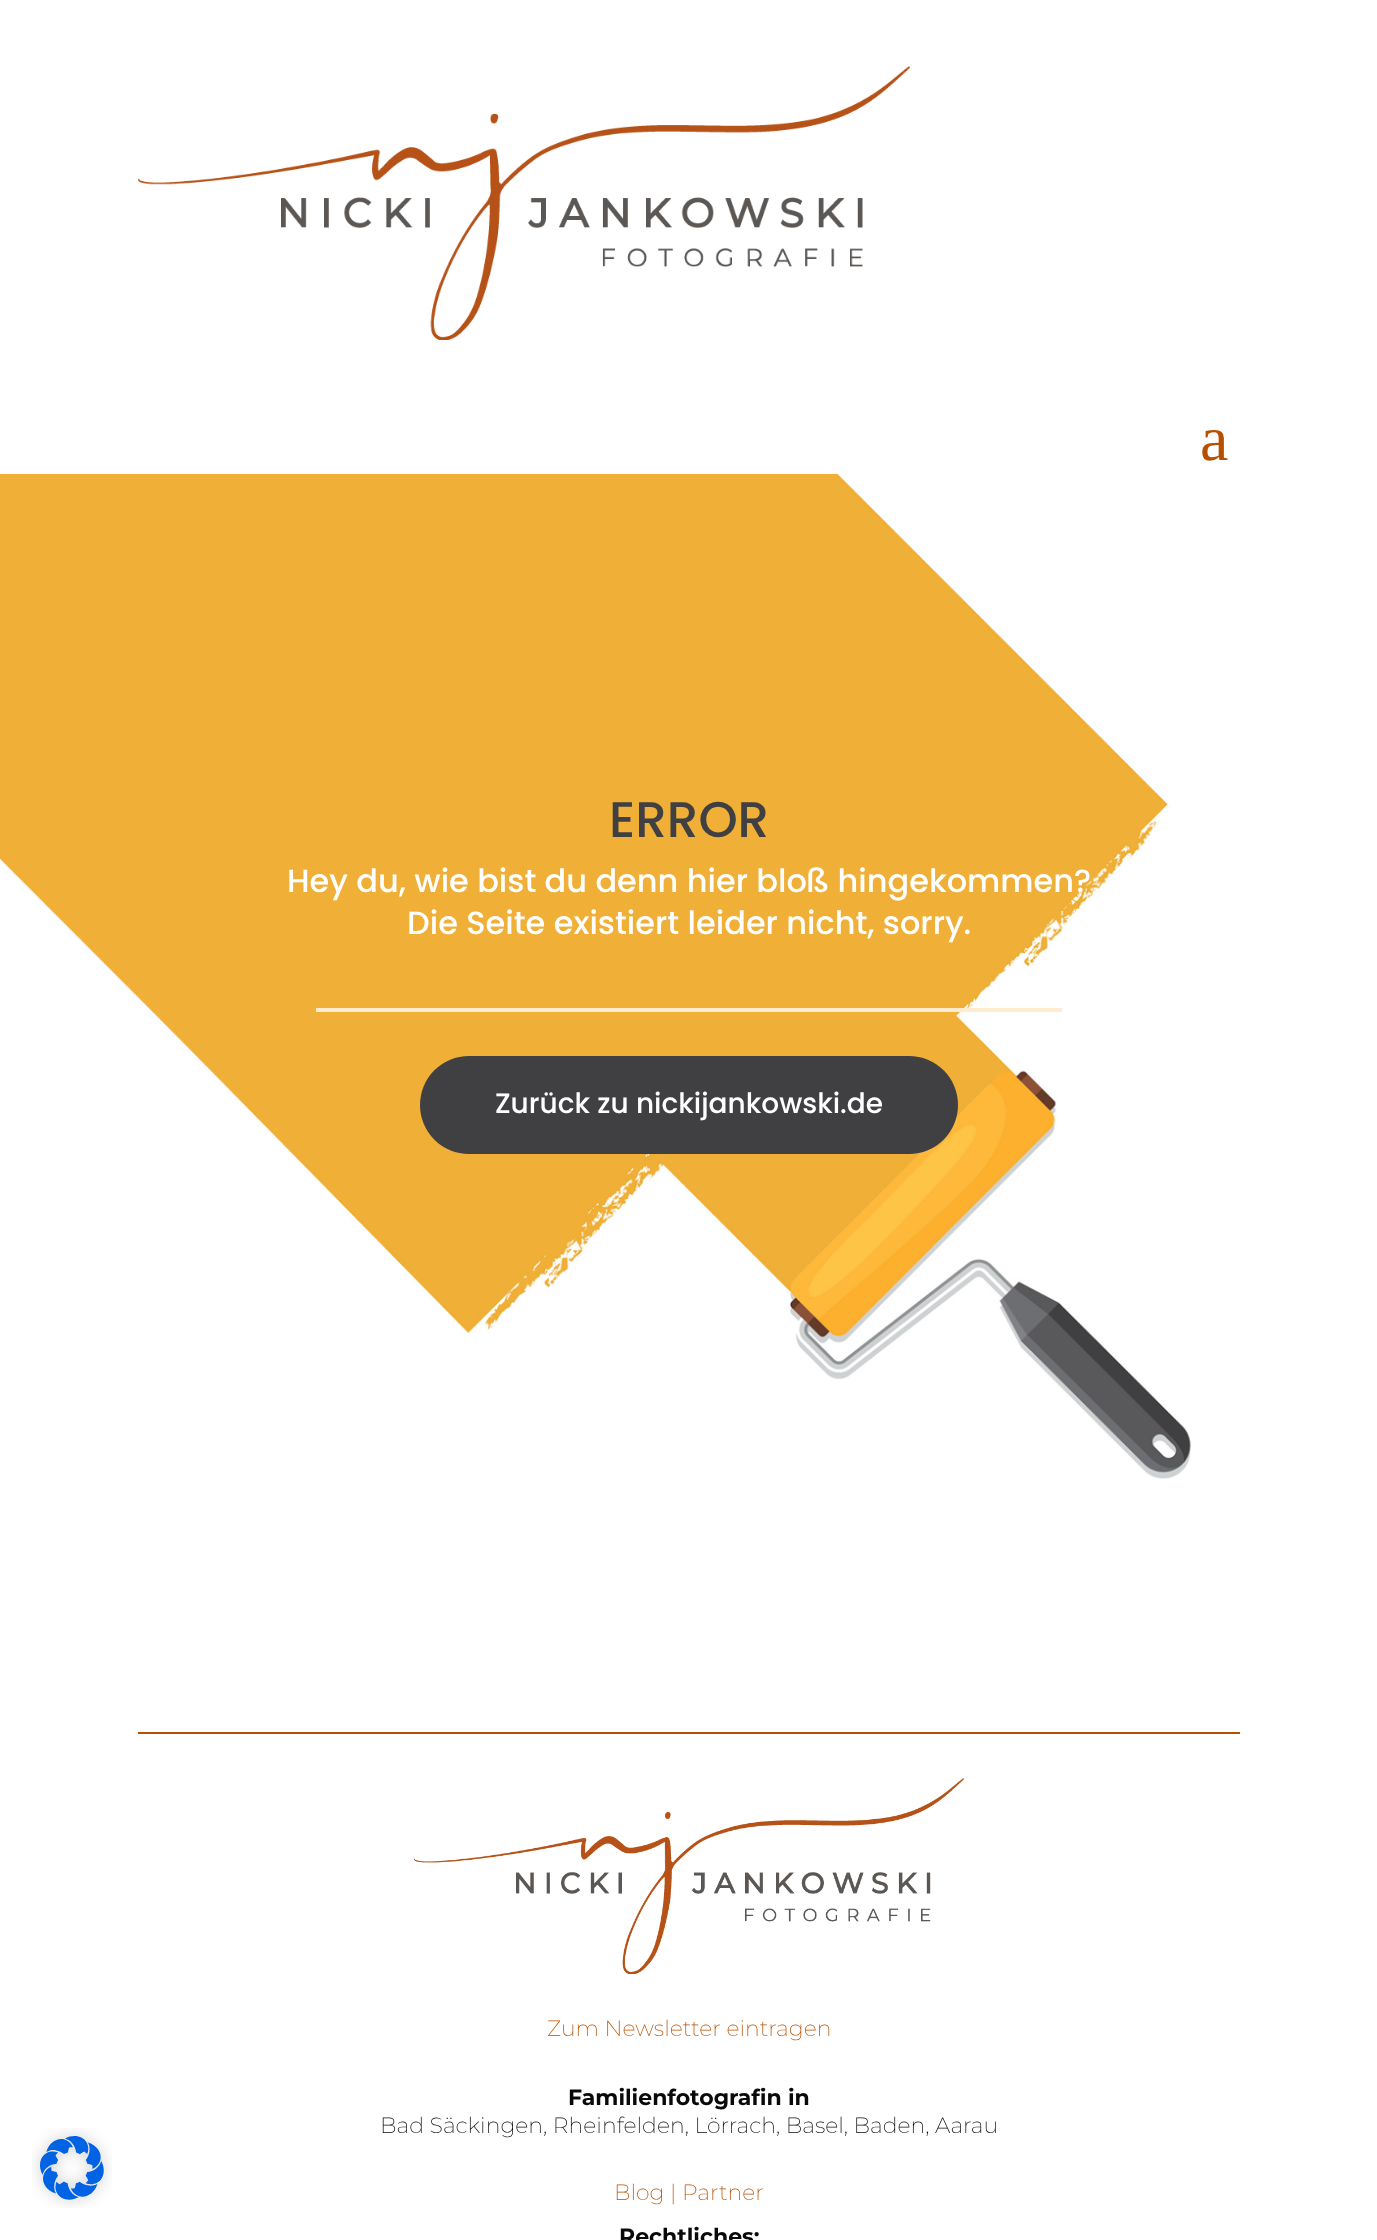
(async () => {
  const canvas = document.querySelector("canvas");
  canvas.width = 1377;
  canvas.height = 2240;
  const ctx = canvas.getContext("2d");
  ctx.miterLimit = 4;
  ctx.fontKerning = "normal";
  async function loadImage(src) {
    const img = new Image();
    img.src = src;
    await img.decode();
    return img;
  }

  ctx.fillStyle = "#ffffff";
  ctx.fillRect(0, 0, 1377, 2240);
  ctx.drawImage(await loadImage("img/1.png"), 32, 2128, 80, 80);
  ctx.drawImage(await loadImage("img/2.png"), 138, 66, 772, 274);
  ctx.drawImage(await loadImage("img/3.png"), 0, 474, 1191, 1005);
  ctx.fillStyle = "#ffecce";
  ctx.fillRect(316, 1008, 746, 4);
  ctx.fillStyle = "#404042";
  ctx.beginPath();
  ctx.roundRect(420, 1056, 538, 98, 49);
  ctx.fill();
  ctx.fillStyle = "#b65000";
  ctx.fillRect(138, 1732, 1102, 2);
  ctx.drawImage(await loadImage("img/4.png"), 414, 1778, 550, 196);
  ctx.font = "64px Liberation Serif";
  ctx.fillText("a", 1200, 460);
  ctx.font = "500 50px Poppins";
  ctx.fillStyle = "#404042";
  ctx.fillText("ERROR", 609, 837);
  ctx.font = "500 32px Poppins";
  ctx.fillStyle = "#ffffff";
  ctx.fillText("Hey du, wie bist du denn hier bloß hingekommen?", 287, 892);
  ctx.fillText("Die Seite existiert leider nicht, sorry.", 407, 934);
  ctx.font = "500 28px Poppins";
  ctx.fillText("Zurück zu nickijankowski.de", 495, 1113);
  ctx.font = "200 22px Montserrat";
  ctx.fillStyle = "#b65000";
  ctx.fillText("Zum Newsletter eintragen", 547, 2036);
  ctx.font = "bold 22px Montserrat";
  ctx.fillStyle = "#0a0909";
  ctx.fillText("Familienfotografin in", 568, 2105);
  ctx.font = "200 22px Montserrat";
  ctx.fillText("Bad Säckingen, Rheinfelden, Lörrach, Basel, Baden, Aarau", 380, 2133);
  ctx.fillStyle = "#b65000";
  ctx.fillText("Blog | Partner", 614, 2200);
  ctx.font = "bold 22px Montserrat";
  ctx.fillStyle = "#0a0909";
  ctx.fillText("Rechtliches:", 619, 2244);
})();
